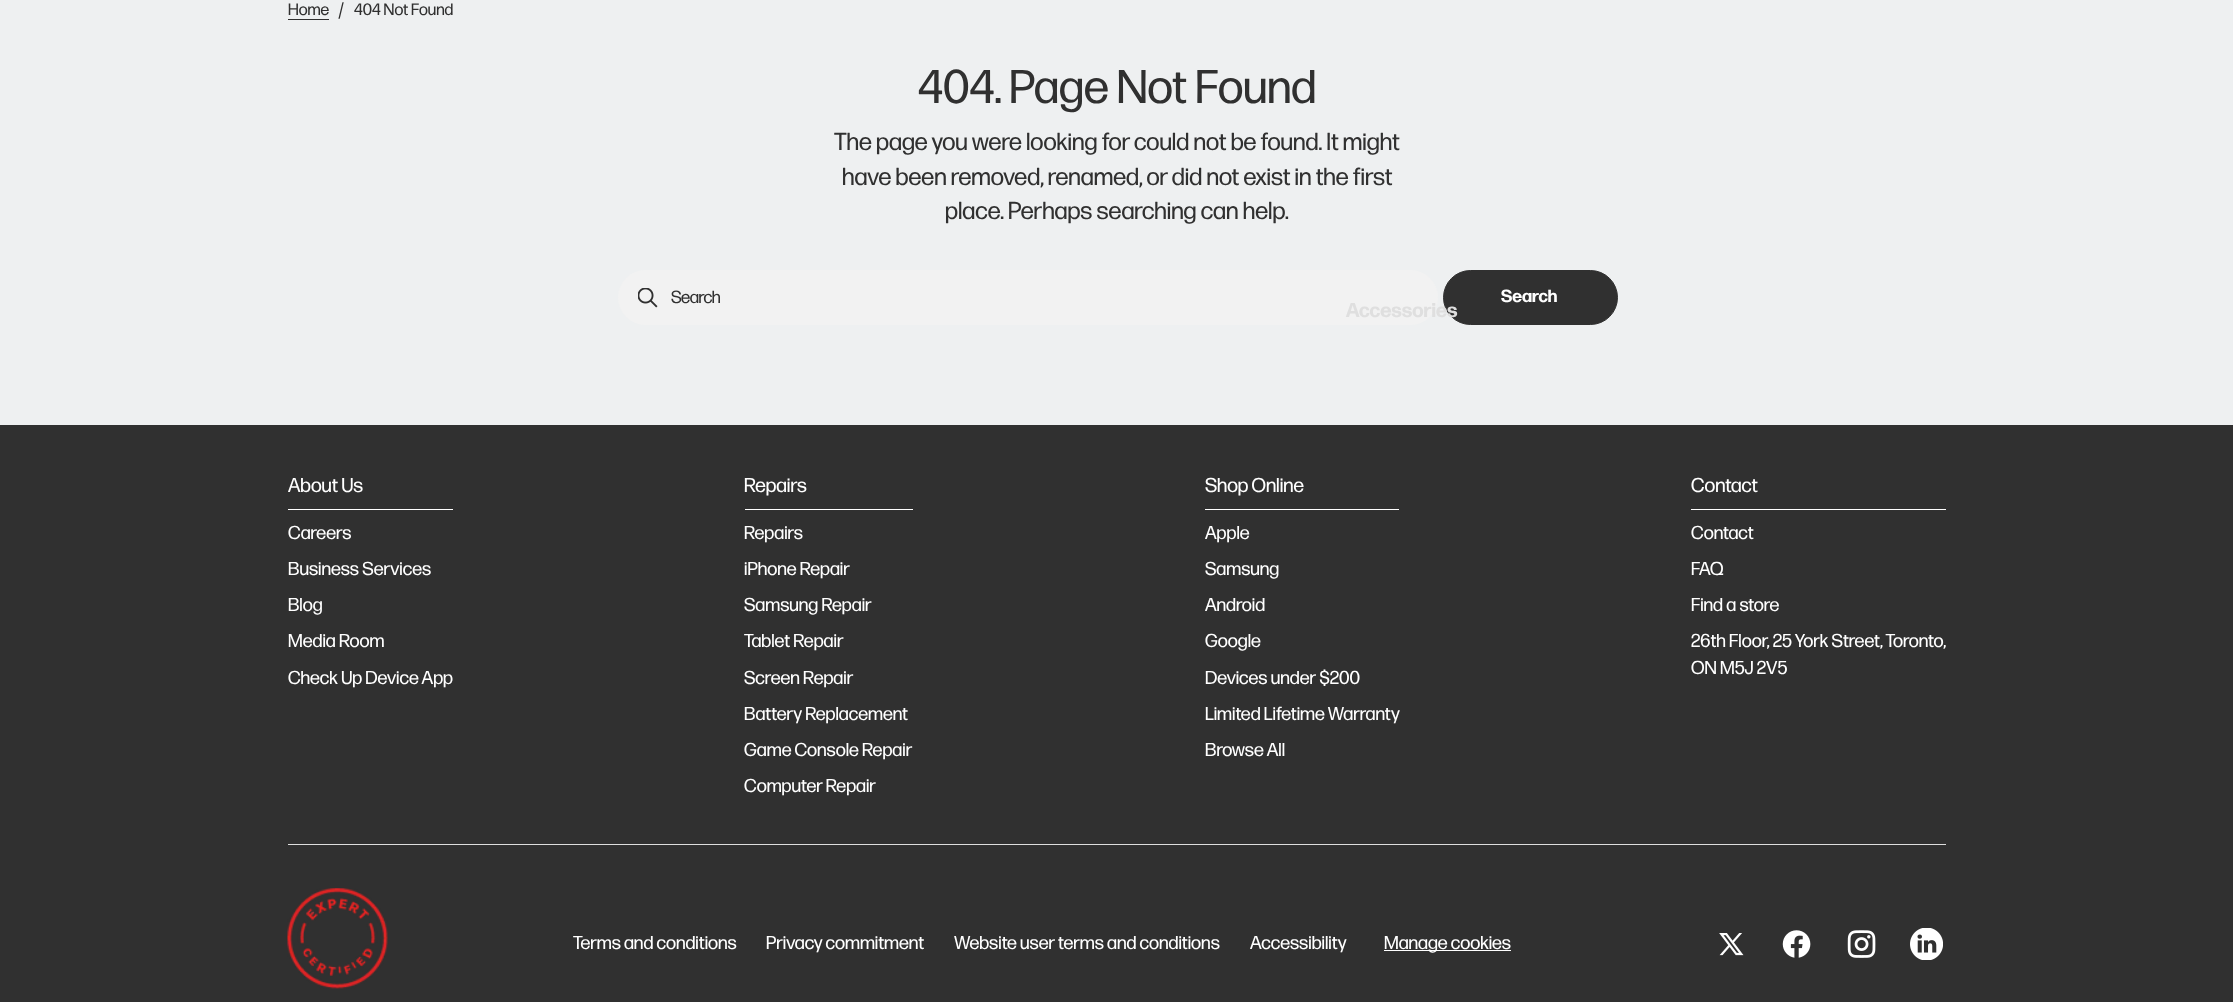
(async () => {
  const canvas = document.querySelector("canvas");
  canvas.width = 2233;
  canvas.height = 1002;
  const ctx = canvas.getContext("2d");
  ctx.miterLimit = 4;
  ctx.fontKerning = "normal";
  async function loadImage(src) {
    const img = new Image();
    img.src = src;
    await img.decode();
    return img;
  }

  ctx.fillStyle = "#eef0f1";
  ctx.fillRect(0, 0, 2233, 1002);
  ctx.fillStyle = "#303030";
  ctx.fillRect(288, 19, 41, 1);
  ctx.fillStyle = "#f2f2f2";
  ctx.beginPath();
  ctx.roundRect(618, 270, 820, 55, 27.5);
  ctx.fill();
  ctx.drawImage(await loadImage("img/1.png"), 638, 288, 20, 20);
  ctx.fillStyle = "#303030";
  ctx.beginPath();
  ctx.roundRect(1443.5, 270.5, 174, 54, 27);
  ctx.fill();
  ctx.strokeStyle = "#303030";
  ctx.stroke();
  for (const [x, y, w, h, color] of [
    [0, 425, 2233, 577, "#303030"],
    [288, 509, 165, 1, "#ffffff"],
    [745, 509, 168, 1, "#ffffff"],
    [1205, 509, 194, 1, "#ffffff"],
    [1691, 509, 255, 1, "#ffffff"],
    [288, 844, 1658, 1, "#dedede"],
  ]) {
    ctx.fillStyle = color;
    ctx.fillRect(x, y, w, h);
  }
  ctx.drawImage(await loadImage("img/2.png"), 287, 888, 101, 101);
  ctx.fillStyle = "#ffffff";
  ctx.fillRect(1384, 950, 127, 1);
  ctx.drawImage(await loadImage("img/3.png"), 1719, 933, 25, 23);
  ctx.drawImage(await loadImage("img/4.png"), 1782, 930, 29, 28);
  ctx.drawImage(await loadImage("img/5.png"), 1847, 930, 29, 28);
  ctx.drawImage(await loadImage("img/6.png"), 1910, 928, 33, 32);
  ctx.font = "16.5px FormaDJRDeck";
  ctx.fillStyle = "#303030";
  ctx.fillText("Home", 288, 15);
  ctx.font = "19px FormaDJRDeck";
  ctx.fillText("/", 338, 16);
  ctx.font = "16.5px FormaDJRDeck";
  ctx.fillText("404 Not Found", 354, 15);
  ctx.font = "47.25px FormaDJRDeck";
  ctx.fillText("404. Page Not Found", 918, 103);
  ctx.font = "24.5px FormaDJRDeck";
  for (const [text, x, y] of [
    ["The page you were looking for could not be found. It might", 834, 150],
    ["have been removed, renamed, or did not exist in the first", 842, 185],
    ["place. Perhaps searching can help.", 945, 219],
  ]) {
    ctx.fillText(text, x, y);
  }
  ctx.letterSpacing = "-0.5px";
  ctx.font = "17.5px FormaDJRDeck";
  ctx.fillText("Search", 671, 303);
  ctx.letterSpacing = "0px";
  ctx.font = "bold 17.5px FormaDJRDeck";
  ctx.fillStyle = "#ffffff";
  ctx.fillText("Search", 1501, 302);
  ctx.font = "bold 20px FormaDJRDeck";
  ctx.fillStyle = "#dfdfdf";
  ctx.fillText("Accessories", 1346, 317);
  ctx.font = "20px FormaDJRDeck";
  ctx.fillStyle = "#ffffff";
  ctx.fillText("About Us", 288, 492);
  ctx.font = "18.75px FormaDJRDeck";
  for (const [text, x, y] of [
    ["Careers", 288, 539],
    ["Business Services", 288, 575],
    ["Blog", 288, 611],
    ["Media Room", 288, 647],
    ["Check Up Device App", 288, 684],
  ]) {
    ctx.fillText(text, x, y);
  }
  ctx.font = "20px FormaDJRDeck";
  ctx.fillText("Repairs", 744, 492);
  ctx.font = "18.75px FormaDJRDeck";
  for (const [text, x, y] of [
    ["Repairs", 744, 539],
    ["iPhone Repair", 744, 575],
    ["Samsung Repair", 744, 611],
    ["Tablet Repair", 744, 647],
    ["Screen Repair", 744, 684],
    ["Battery Replacement", 744, 720],
    ["Game Console Repair", 744, 756],
    ["Computer Repair", 744, 792],
  ]) {
    ctx.fillText(text, x, y);
  }
  ctx.font = "20px FormaDJRDeck";
  ctx.fillText("Shop Online", 1205, 492);
  ctx.font = "18.75px FormaDJRDeck";
  for (const [text, x, y] of [
    ["Apple", 1205, 539],
    ["Samsung", 1205, 575],
    ["Android", 1205, 611],
    ["Google", 1205, 647],
    ["Devices under $200", 1205, 684],
    ["Limited Lifetime Warranty", 1205, 720],
    ["Browse All", 1205, 756],
  ]) {
    ctx.fillText(text, x, y);
  }
  ctx.font = "20px FormaDJRDeck";
  ctx.fillText("Contact", 1691, 492);
  ctx.font = "18.75px FormaDJRDeck";
  for (const [text, x, y] of [
    ["Contact", 1691, 539],
    ["FAQ", 1691, 575],
    ["Find a store", 1691, 611],
    ["26th Floor, 25 York Street, Toronto,", 1691, 647],
    ["ON M5J 2V5", 1691, 674],
    ["Terms and conditions", 573, 949],
    ["Privacy commitment", 766, 949],
    ["Website user terms and conditions", 954, 949],
    ["Accessibility", 1250, 949],
    ["Manage cookies", 1384, 949],
  ]) {
    ctx.fillText(text, x, y);
  }
})();
